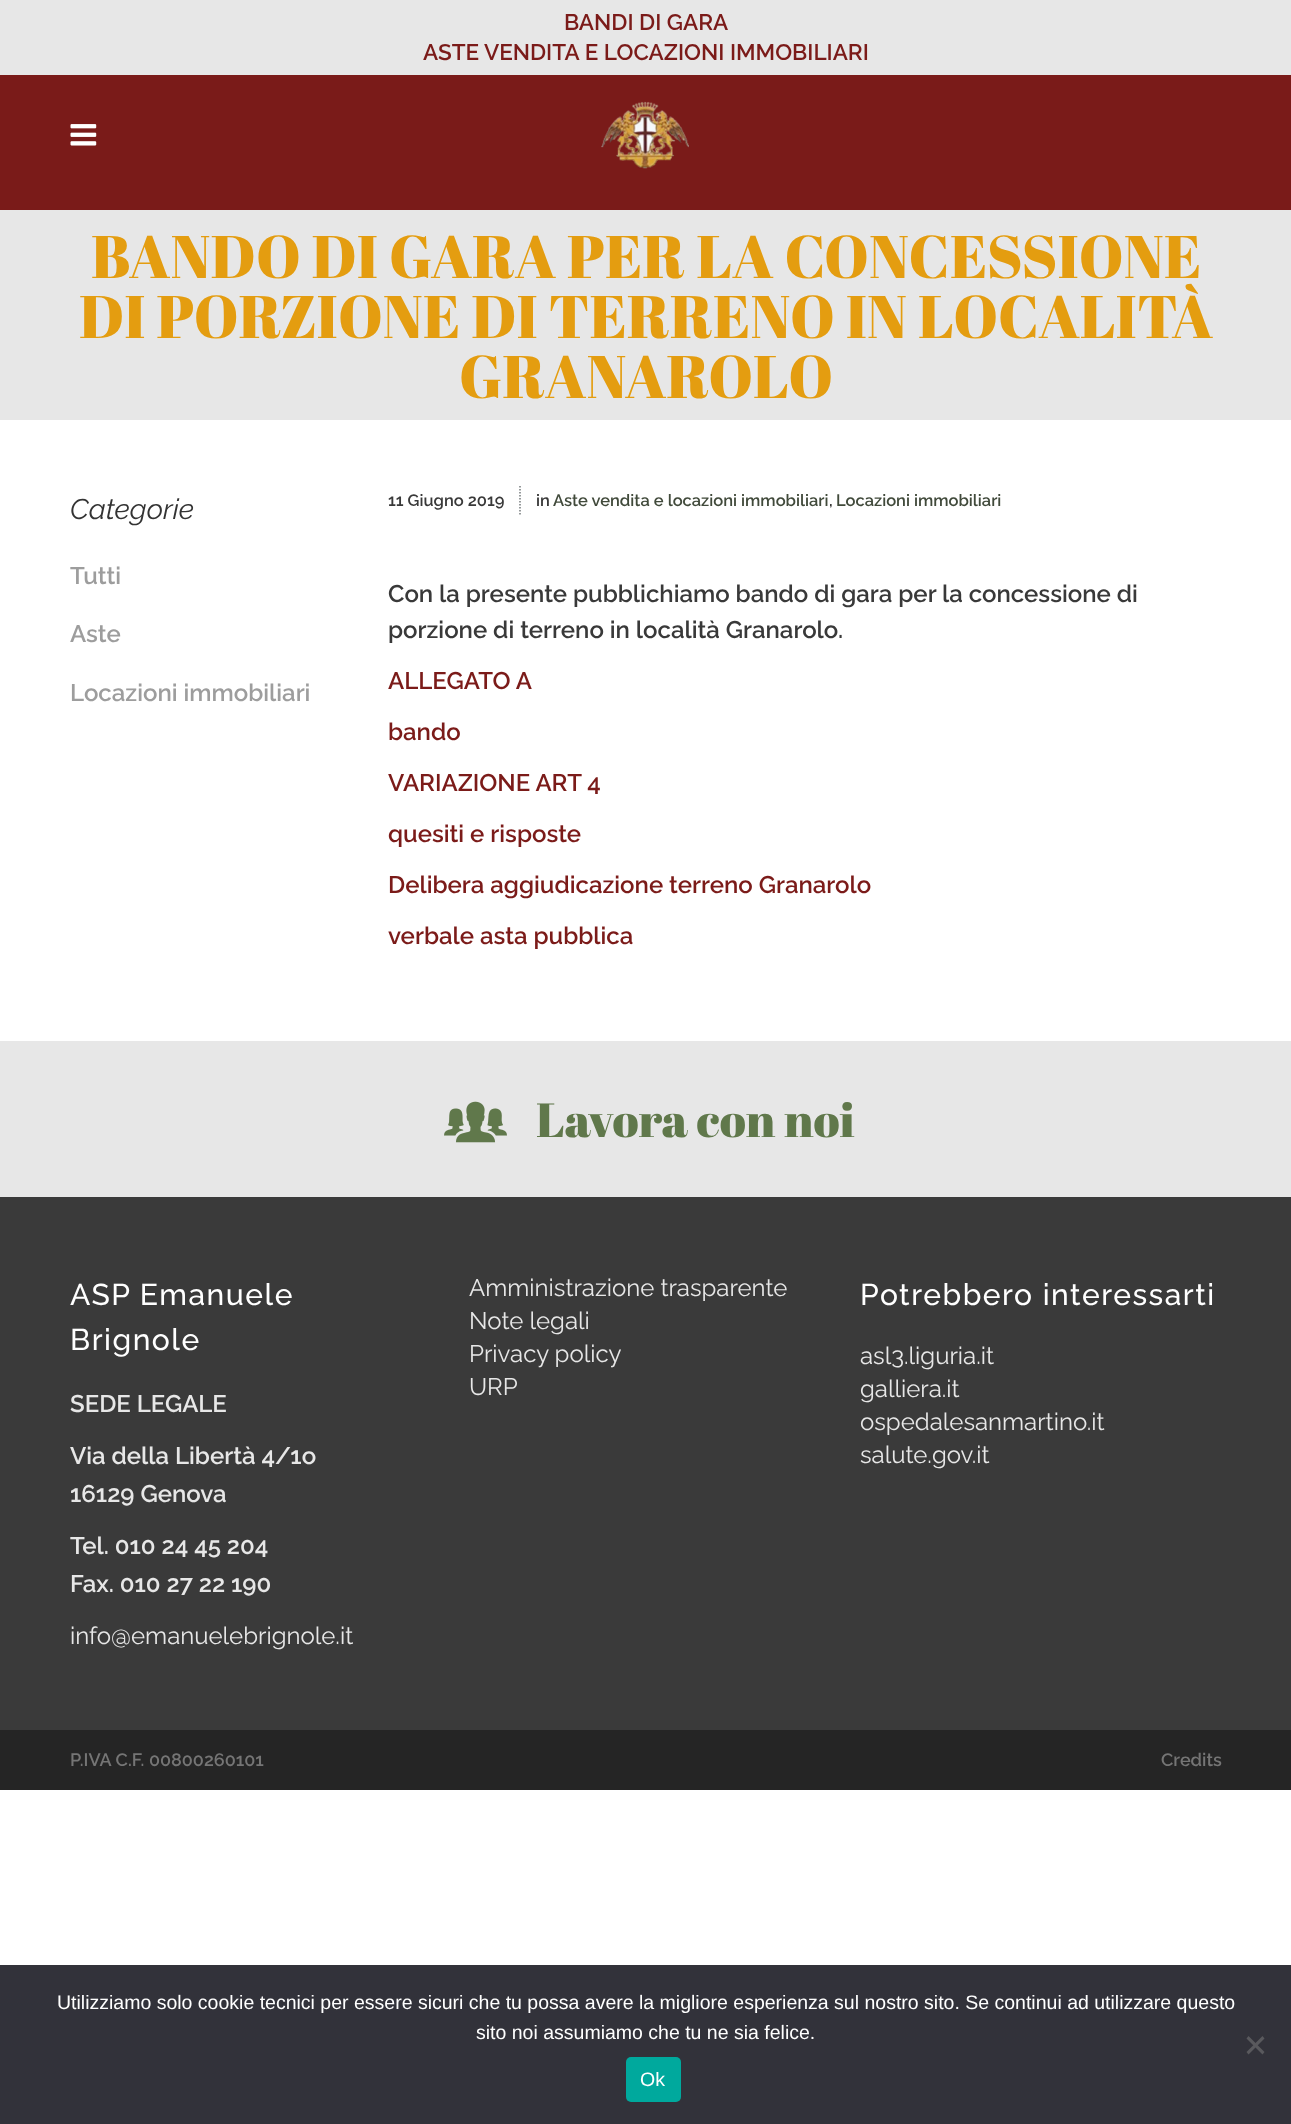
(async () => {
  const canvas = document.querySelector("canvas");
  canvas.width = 1291;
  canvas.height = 2124;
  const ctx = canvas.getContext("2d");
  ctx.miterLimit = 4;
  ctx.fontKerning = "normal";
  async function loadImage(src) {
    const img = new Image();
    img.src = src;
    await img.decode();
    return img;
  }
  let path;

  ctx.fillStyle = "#ffffff";
  ctx.fillRect(0, 0, 1291, 2124);
  ctx.fillStyle = "#e7e7e7";
  ctx.fillRect(0, 0, 1291, 75);
  ctx.fillStyle = "#7a1b19";
  ctx.fillRect(0, 75, 1291, 135);
  ctx.drawImage(await loadImage("img/1.png"), 70, 124, 27, 22);
  ctx.drawImage(await loadImage("img/2.png"), 601, 101, 88, 68);
  ctx.fillStyle = "#e7e7e7";
  ctx.fillRect(0, 210, 1291, 210);
  path = new Path2D("M520 486V516");
  ctx.strokeStyle = "#74797b";
  ctx.lineWidth = 1.5;
  ctx.setLineDash([1.5, 1.5]);
  ctx.stroke(path);
  ctx.fillRect(0, 1041, 1291, 156);
  ctx.drawImage(await loadImage("img/3.png"), 444, 1101, 63, 42);
  for (const [x, y, w, h, color] of [
    [0, 1197, 1291, 533, "#3a3a3a"],
    [0, 1730, 1291, 60, "#252525"],
    [0, 1965, 1291, 159, "#32323a"],
  ]) {
    ctx.fillStyle = color;
    ctx.fillRect(x, y, w, h);
  }
  ctx.fillStyle = "#59595d";
  path = new Path2D("M1262.5 2036L1264.5 2038.5L1248.5 2054.5L1246.5 2052Z");
  ctx.fill(path);
  path = new Path2D("M1246.5 2038.5L1248.5 2036L1264.5 2052L1262.5 2054.5Z");
  ctx.fill(path);
  ctx.fillStyle = "#00a99d";
  ctx.beginPath();
  ctx.roundRect(626, 2057, 55, 45, 5);
  ctx.fill();
  ctx.font = "600 22.5px Raleway";
  ctx.fillStyle = "#7b1b19";
  ctx.fillText("BANDI DI GARA", 564, 30);
  ctx.fillText("ASTE VENDITA E LOCAZIONI IMMOBILIARI", 423, 60);
  ctx.font = "60px Abril Fatface";
  ctx.fillStyle = "#e49d10";
  for (const [text, x, y] of [
    ["BANDO DI GARA PER LA CONCESSIONE", 91, 278],
    ["DI PORZIONE DI TERRENO IN LOCALITÀ", 79, 338],
    ["GRANAROLO", 459, 398],
  ]) {
    ctx.fillText(text, x, y);
  }
  ctx.font = "italic 28.5px Raleway";
  ctx.fillStyle = "#333333";
  ctx.fillText("Categorie", 70, 519);
  ctx.font = "600 24px Raleway";
  ctx.fillStyle = "#9d9d9d";
  for (const [text, x, y] of [
    ["Tutti", 70, 584],
    ["Aste", 70, 642],
    ["Locazioni immobiliari", 70, 701],
  ]) {
    ctx.fillText(text, x, y);
  }
  ctx.font = "600 16.5px Raleway";
  ctx.fillStyle = "#393939";
  ctx.fillText("11 Giugno 2019", 388, 506);
  ctx.fillText("in", 536, 506);
  ctx.fillStyle = "#414a3b";
  ctx.fillText("Aste vendita e locazioni immobiliari", 553, 506);
  ctx.fillStyle = "#393939";
  ctx.fillText(",", 829, 506);
  ctx.fillStyle = "#414a3b";
  ctx.fillText("Locazioni immobiliari", 836, 506);
  ctx.font = "600 24px Raleway";
  ctx.fillStyle = "#393939";
  ctx.fillText("Con la presente pubblichiamo bando di gara per la concessione di", 388, 602);
  ctx.fillText("porzione di terreno in località Granarolo.", 388, 638);
  ctx.fillStyle = "#7b1b19";
  for (const [text, x, y] of [
    ["ALLEGATO A", 388, 689],
    ["bando", 388, 740],
    ["VARIAZIONE ART 4", 388, 791],
    ["quesiti e risposte", 388, 842],
    ["Delibera aggiudicazione terreno Granarolo", 388, 893],
    ["verbale asta pubblica", 388, 944],
  ]) {
    ctx.fillText(text, x, y);
  }
  ctx.font = "48px Abril Fatface";
  ctx.fillStyle = "#60784b";
  ctx.fillText("Lavora con noi", 536, 1137);
  ctx.letterSpacing = "1.5px";
  ctx.font = "500 30px Raleway";
  ctx.fillStyle = "#ffffff";
  ctx.fillText("ASP Emanuele", 70, 1305);
  ctx.fillText("Brignole", 70, 1350);
  ctx.letterSpacing = "0px";
  ctx.font = "600 24px Raleway";
  ctx.fillStyle = "#e7e7e7";
  for (const [text, x, y] of [
    ["SEDE LEGALE", 70, 1412],
    ["Via della Libertà 4/1o", 70, 1464],
    ["16129 Genova", 70, 1502],
    ["Tel. 010 24 45 204", 70, 1554],
    ["Fax. 010 27 22 190", 70, 1592],
  ]) {
    ctx.fillText(text, x, y);
  }
  ctx.font = "24px Raleway";
  for (const [text, x, y] of [
    ["info@emanuelebrignole.it", 70, 1644],
    ["Amministrazione trasparente", 469, 1296],
    ["Note legali", 469, 1329],
    ["Privacy policy", 469, 1362],
    ["URP", 469, 1395],
  ]) {
    ctx.fillText(text, x, y);
  }
  ctx.letterSpacing = "1.5px";
  ctx.font = "500 30px Raleway";
  ctx.fillStyle = "#ffffff";
  ctx.fillText("Potrebbero interessarti", 860, 1305);
  ctx.letterSpacing = "0px";
  ctx.font = "24px Raleway";
  ctx.fillStyle = "#e7e7e7";
  for (const [text, x, y] of [
    ["asl3.liguria.it", 860, 1364],
    ["galliera.it", 860, 1397],
    ["ospedalesanmartino.it", 860, 1430],
    ["salute.gov.it", 860, 1463],
  ]) {
    ctx.fillText(text, x, y);
  }
  ctx.font = "600 18px Raleway";
  ctx.fillStyle = "#757575";
  ctx.fillText("P.IVA C.F. 00800260101", 70, 1766);
  ctx.fillText("Credits", 1161, 1766);
  ctx.font = "19.5px Liberation Sans";
  ctx.fillStyle = "#ffffff";
  for (const [text, x, y] of [
    ["Utilizziamo solo cookie tecnici per essere sicuri che tu possa avere la migliore esperienza sul nostro sito. Se continui ad utilizzare questo", 57, 2009],
    ["sito noi assumiamo che tu ne sia felice.", 476, 2039],
    ["Ok", 640, 2086],
  ]) {
    ctx.fillText(text, x, y);
  }
})();
